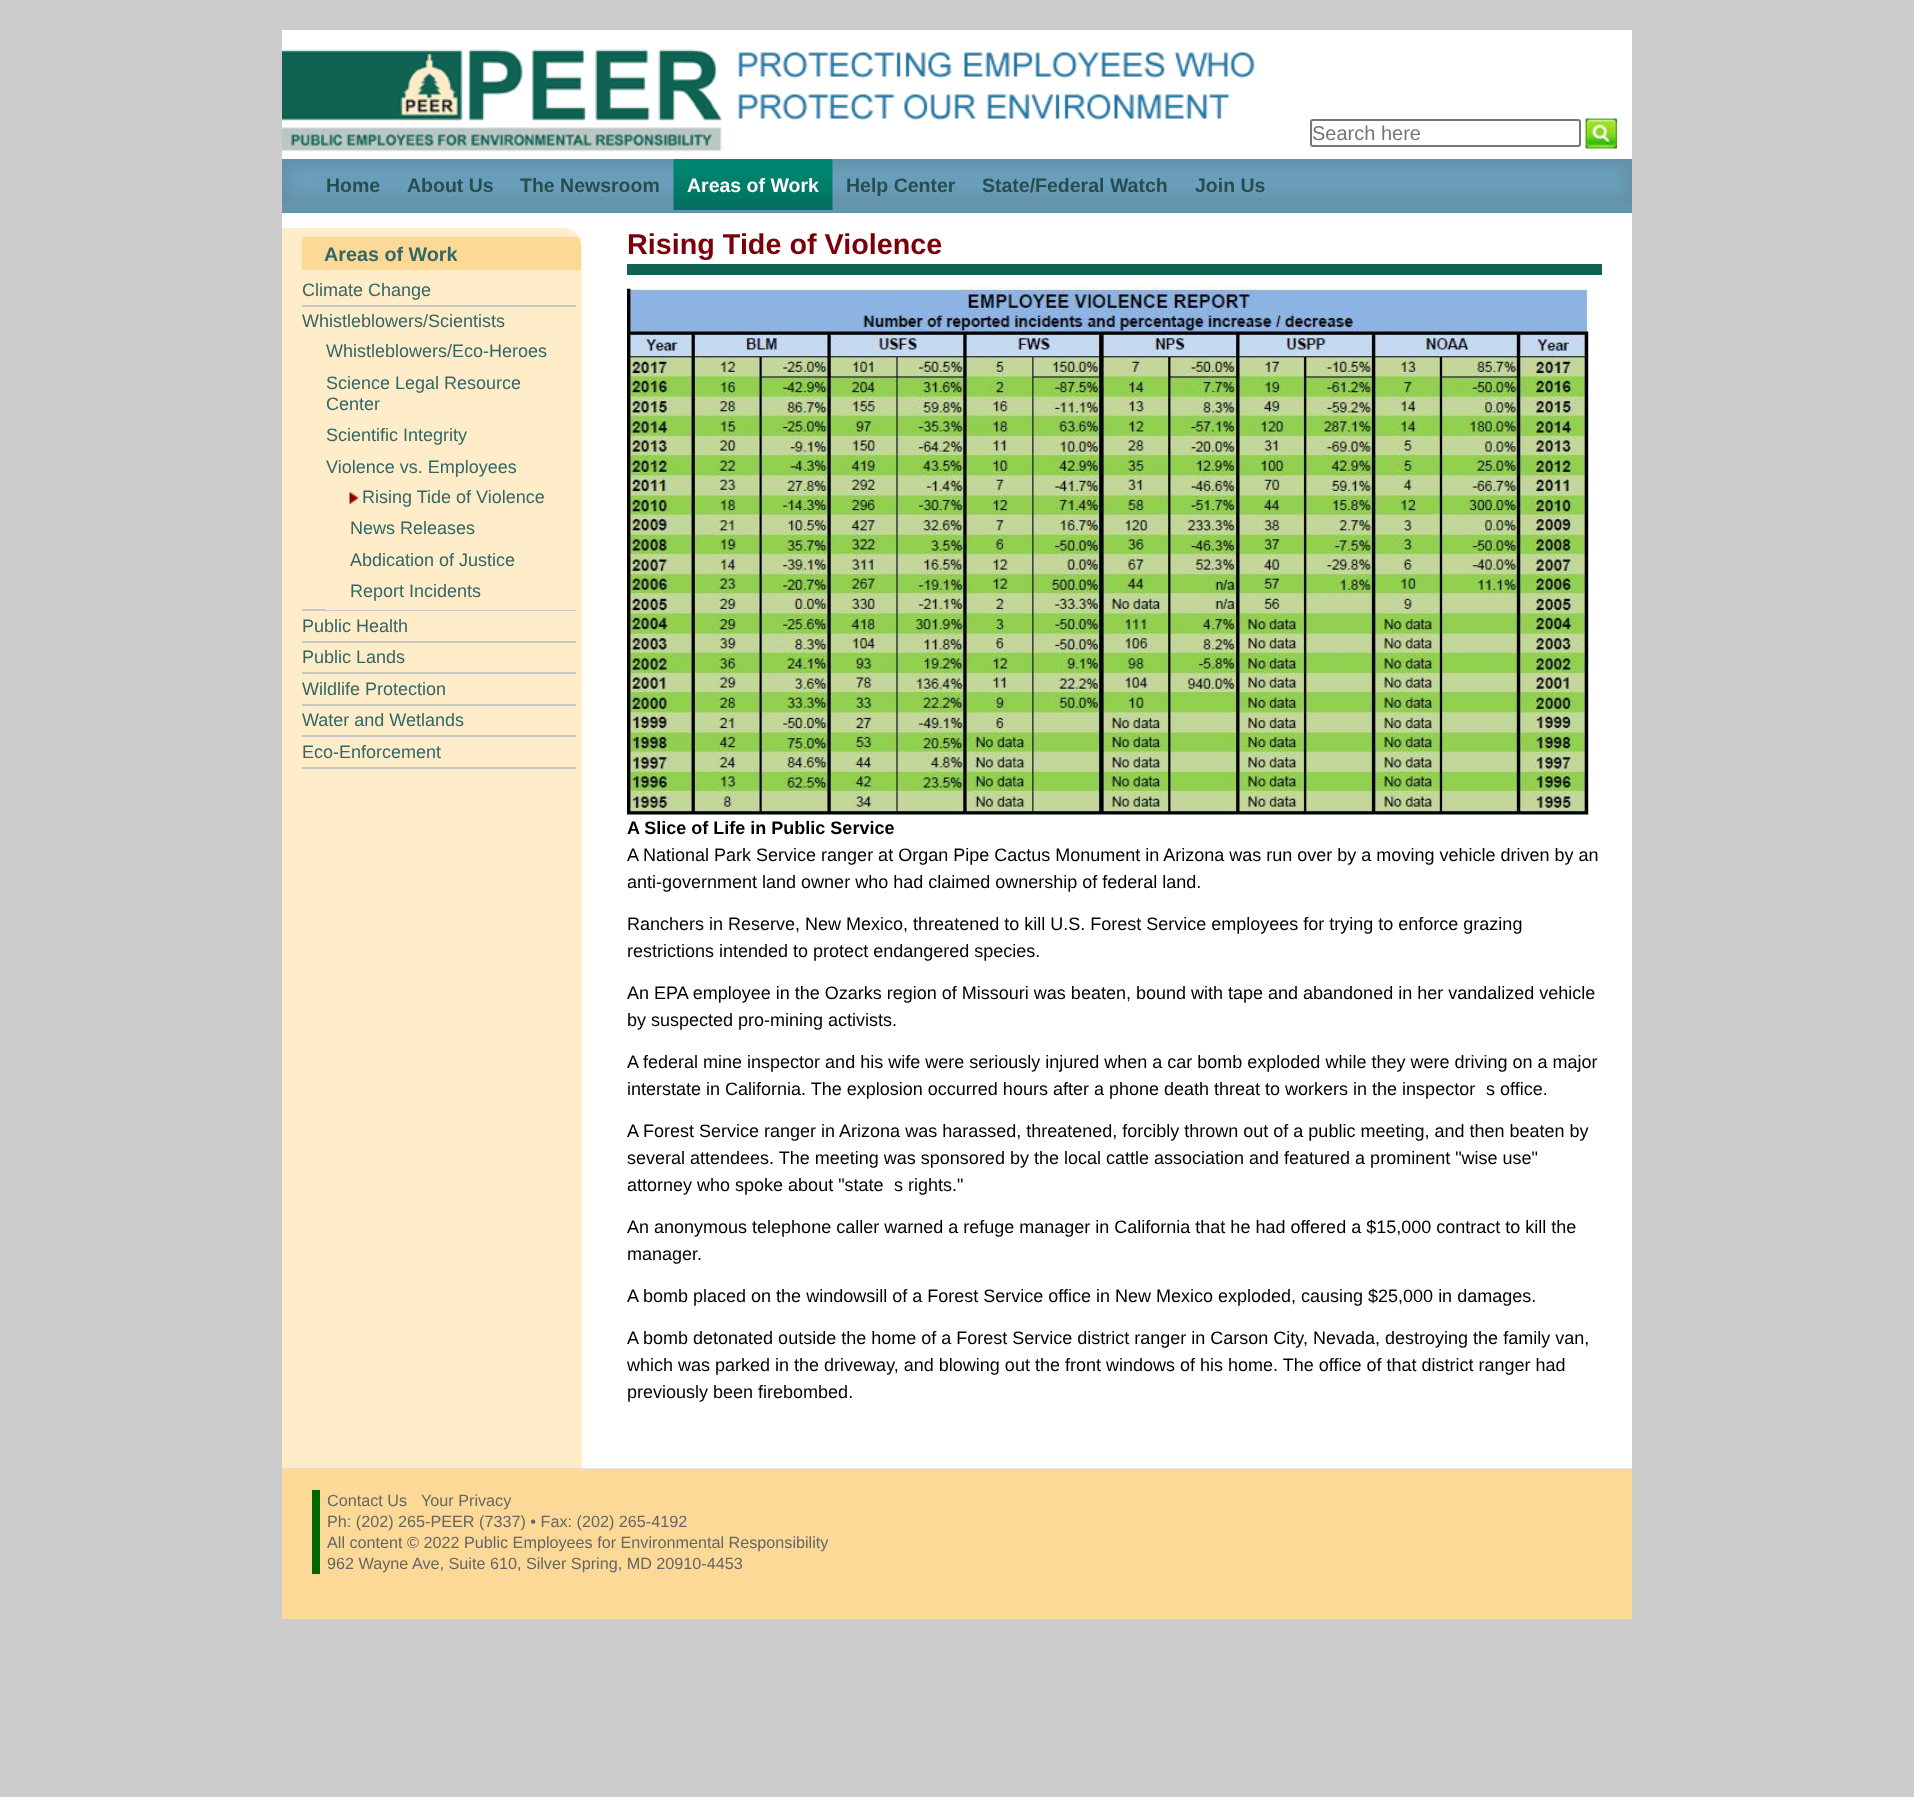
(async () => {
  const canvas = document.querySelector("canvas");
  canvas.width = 1914;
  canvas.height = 1797;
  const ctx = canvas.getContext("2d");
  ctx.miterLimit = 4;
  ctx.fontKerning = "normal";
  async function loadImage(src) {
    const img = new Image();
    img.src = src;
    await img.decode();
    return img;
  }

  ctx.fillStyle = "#cccccc";
  ctx.fillRect(0, 0, 1914, 1797);
  ctx.drawImage(await loadImage("img/1.png"), 282, 30, 1350, 129);
  ctx.beginPath();
  ctx.roundRect(1311, 120, 269, 26, 2);
  ctx.strokeStyle = "#767676";
  ctx.lineWidth = 2;
  ctx.stroke();
  ctx.drawImage(await loadImage("img/2.png"), 1585, 118, 32, 31);
  ctx.fillStyle = "#6595ad";
  ctx.fillRect(282, 202, 1350, 11);
  ctx.drawImage(await loadImage("img/3.png"), 282, 159, 1350, 43);
  ctx.drawImage(await loadImage("img/4.png"), 673, 159, 160, 51);
  ctx.fillStyle = "#ffffff";
  ctx.fillRect(282, 213, 1350, 15);
  ctx.drawImage(await loadImage("img/5.png"), 282, 228, 1350, 1241);
  ctx.fillStyle = "#fcd997";
  ctx.fillRect(302, 237, 279, 33);
  ctx.drawImage(await loadImage("img/6.png"), 567, 228, 15, 15);
  for (const [x, y, w, h, color] of [
    [302, 305, 274, 2, "#c8c8c8"],
    [302, 609, 274, 2, "#c8c8c8"],
    [326, 609, 250, 1, "#ffedc9"],
  ]) {
    ctx.fillStyle = color;
    ctx.fillRect(x, y, w, h);
  }
  ctx.drawImage(await loadImage("img/7.png"), 349, 491, 10, 13);
  for (const [x, y, w, h, color] of [
    [302, 641, 274, 2, "#c8c8c8"],
    [302, 672, 274, 2, "#c8c8c8"],
    [302, 704, 274, 2, "#c8c8c8"],
    [302, 735, 274, 2, "#c8c8c8"],
    [302, 767, 274, 2, "#c8c8c8"],
    [627, 264, 975, 11, "#106352"],
  ]) {
    ctx.fillStyle = color;
    ctx.fillRect(x, y, w, h);
  }
  ctx.drawImage(await loadImage("img/8.png"), 627, 286, 962, 529);
  ctx.fillStyle = "#fcd997";
  ctx.fillRect(282, 1469, 1350, 150);
  ctx.fillStyle = "#006600";
  ctx.fillRect(312, 1490, 8, 84);
  ctx.font = "20px Liberation Sans";
  ctx.fillStyle = "#757575";
  ctx.fillText("Search here", 1312, 140);
  ctx.font = "bold 19.5px Liberation Sans";
  ctx.fillStyle = "#274e4e";
  for (const [text, x, y] of [
    ["Home", 326, 192],
    ["About Us", 407, 192],
    ["The Newsroom", 520, 192],
  ]) {
    ctx.fillText(text, x, y);
  }
  ctx.fillStyle = "#ffffff";
  ctx.fillText("Areas of Work", 687, 192);
  ctx.fillStyle = "#274e4e";
  for (const [text, x, y] of [
    ["Help Center", 846, 192],
    ["State/Federal Watch", 982, 192],
    ["Join Us", 1195, 192],
  ]) {
    ctx.fillText(text, x, y);
  }
  ctx.font = "bold 19.75px Liberation Sans";
  ctx.fillStyle = "#336666";
  ctx.fillText("Areas of Work", 324, 261);
  ctx.font = "18px Liberation Sans";
  for (const [text, x, y] of [
    ["Climate Change", 302, 296],
    ["Whistleblowers/Scientists", 302, 327],
    ["Whistleblowers/Eco-Heroes", 326, 357],
    ["Science Legal Resource", 326, 389],
    ["Center", 326, 410],
    ["Scientific Integrity", 326, 441],
    ["Violence vs. Employees", 326, 473],
    ["Rising Tide of Violence", 362, 503],
    ["News Releases", 350, 534],
    ["Abdication of Justice", 350, 566],
    ["Report Incidents", 350, 597],
    ["Public Health", 302, 632],
    ["Public Lands", 302, 663],
    ["Wildlife Protection", 302, 695],
    ["Water and Wetlands", 302, 726],
    ["Eco-Enforcement", 302, 758],
  ]) {
    ctx.fillText(text, x, y);
  }
  ctx.font = "bold 28.75px Liberation Sans";
  ctx.fillStyle = "#7a000b";
  ctx.fillText("Rising Tide of Violence", 627, 254);
  ctx.font = "bold 18px Liberation Sans";
  ctx.fillStyle = "#000000";
  ctx.fillText("A Slice of Life in Public Service", 627, 834);
  ctx.font = "18px Liberation Sans";
  for (const [text, x, y] of [
    ["A National Park Service ranger at Organ Pipe Cactus Monument in Arizona was run over by a moving vehicle driven by an", 627, 861],
    ["anti-government land owner who had claimed ownership of federal land.", 627, 888],
    ["Ranchers in Reserve, New Mexico, threatened to kill U.S. Forest Service employees for trying to enforce grazing", 627, 930],
    ["restrictions intended to protect endangered species.", 627, 957],
    ["An EPA employee in the Ozarks region of Missouri was beaten, bound with tape and abandoned in her vandalized vehicle", 627, 999],
    ["by suspected pro-mining activists.", 627, 1026],
    ["A federal mine inspector and his wife were seriously injured when a car bomb exploded while they were driving on a major", 627, 1068],
    ["interstate in California. The explosion occurred hours after a phone death threat to workers in the inspector", 627, 1095],
    ["s office.", 1486, 1095],
    ["A Forest Service ranger in Arizona was harassed, threatened, forcibly thrown out of a public meeting, and then beaten by", 627, 1137],
    ["several attendees. The meeting was sponsored by the local cattle association and featured a prominent \"wise use\"", 627, 1164],
    ["attorney who spoke about \"state", 627, 1191],
    ["s rights.\"", 894, 1191],
    ["An anonymous telephone caller warned a refuge manager in California that he had offered a $15,000 contract to kill the", 627, 1233],
    ["manager.", 627, 1260],
    ["A bomb placed on the windowsill of a Forest Service office in New Mexico exploded, causing $25,000 in damages.", 627, 1302],
    ["A bomb detonated outside the home of a Forest Service district ranger in Carson City, Nevada, destroying the family van,", 627, 1344],
    ["which was parked in the driveway, and blowing out the front windows of his home. The office of that district ranger had", 627, 1371],
    ["previously been firebombed.", 627, 1398],
  ]) {
    ctx.fillText(text, x, y);
  }
  ctx.font = "16.2px Liberation Sans";
  ctx.fillStyle = "#666666";
  for (const [text, x, y] of [
    ["Contact Us", 327, 1506],
    ["Your Privacy", 421, 1506],
    ["Ph: (202) 265-PEER (7337) • Fax: (202) 265-4192", 327, 1527],
    ["All content © 2022 Public Employees for Environmental Responsibility", 327, 1548],
    ["962 Wayne Ave, Suite 610, Silver Spring, MD 20910-4453", 327, 1569],
  ]) {
    ctx.fillText(text, x, y);
  }
})();
